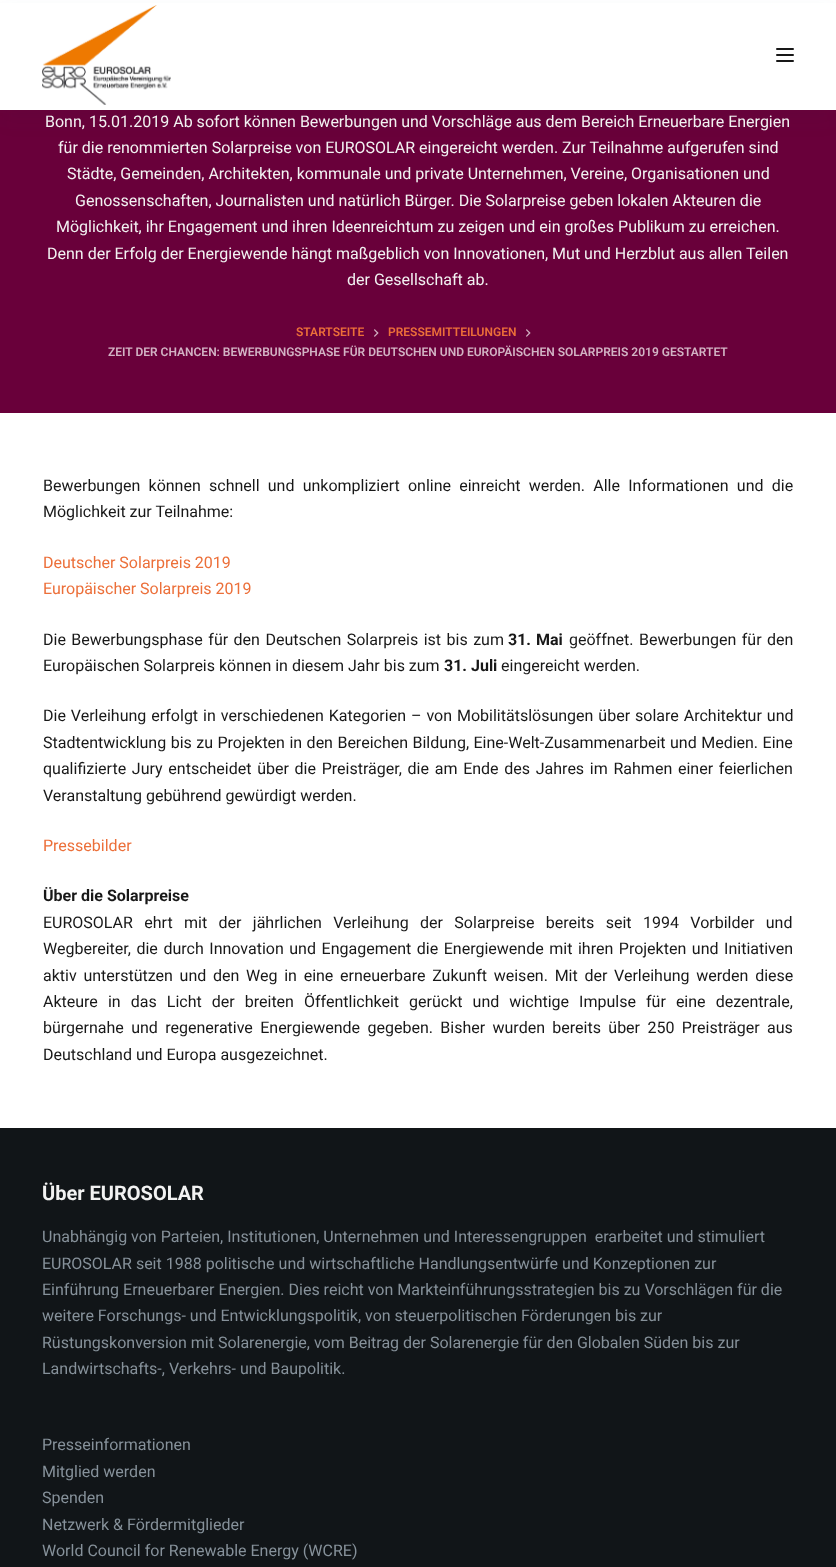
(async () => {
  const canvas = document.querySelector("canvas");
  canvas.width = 836;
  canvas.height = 1567;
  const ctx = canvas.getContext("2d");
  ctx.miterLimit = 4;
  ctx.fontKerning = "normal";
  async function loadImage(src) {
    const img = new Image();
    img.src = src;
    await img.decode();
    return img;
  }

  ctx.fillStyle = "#ffffff";
  ctx.fillRect(0, 0, 836, 1567);
  ctx.fillStyle = "#69003a";
  ctx.fillRect(0, 110, 836, 303);
  ctx.fillStyle = "rgba(43, 61, 79, 0.05)";
  ctx.filter = "blur(10px)";
  ctx.beginPath();
  ctx.rect(0, 10, 836, 110);
  ctx.fill();
  ctx.filter = "none";
  ctx.fillStyle = "#ffffff";
  ctx.fillRect(0, 3, 836, 107);
  ctx.drawImage(await loadImage("img/1.png"), 42, 5, 129, 100);
  ctx.fillStyle = "#181818";
  ctx.beginPath();
  ctx.roundRect(776, 48, 18, 2, 1);
  ctx.fill();
  ctx.beginPath();
  ctx.roundRect(776, 54, 18, 2, 1);
  ctx.fill();
  ctx.beginPath();
  ctx.roundRect(776, 60, 18, 2, 1);
  ctx.fill();
  ctx.drawImage(await loadImage("img/2.png"), 374, 329, 5, 8);
  ctx.drawImage(await loadImage("img/2.png"), 526, 329, 5, 8);
  ctx.fillStyle = "#111518";
  ctx.fillRect(0, 1128, 836, 439);
  ctx.font = "16px Roboto";
  ctx.fillStyle = "#f2f2f2";
  for (const [text, x, y] of [
    ["Bonn, 15.01.2019 Ab sofort können Bewerbungen und Vorschläge aus dem Bereich Erneuerbare Energien", 45, 127],
    ["für die renommierten Solarpreise von EUROSOLAR eingereicht werden. Zur Teilnahme aufgerufen sind", 58, 153],
    ["Städte, Gemeinden, Architekten, kommunale und private Unternehmen, Vereine, Organisationen und", 67, 179],
    ["Genossenschaften, Journalisten und natürlich Bürger. Die Solarpreise geben lokalen Akteuren die", 75, 206],
    ["Möglichkeit, ihr Engagement und ihren Ideenreichtum zu zeigen und ein großes Publikum zu erreichen.", 56, 232],
    ["Denn der Erfolg der Energiewende hängt maßgeblich von Innovationen, Mut und Herzblut aus allen Teilen", 47, 259],
    ["der Gesellschaft ab.", 347, 285],
  ]) {
    ctx.fillText(text, x, y);
  }
  ctx.font = "600 12px Roboto";
  ctx.fillStyle = "#ec6f39";
  ctx.fillText("STARTSEITE", 296, 336);
  ctx.fillText("PRESSEMITTEILUNGEN", 388, 336);
  ctx.fillStyle = "#d2b3c4";
  ctx.fillText("ZEIT DER CHANCEN: BEWERBUNGSPHASE FÜR DEUTSCHEN UND EUROPÄISCHEN SOLARPREIS 2019 GESTARTET", 108, 356);
  ctx.wordSpacing = "4.25px";
  ctx.font = "16px Roboto";
  ctx.fillStyle = "#181818";
  ctx.fillText("Bewerbungen können schnell und unkompliziert online einreicht werden. Alle Informationen und die", 43, 491);
  ctx.wordSpacing = "0px";
  ctx.fillText("Möglichkeit zur Teilnahme:", 43, 517);
  ctx.fillStyle = "#ec6f39";
  ctx.fillText("Deutscher Solarpreis 2019", 43, 568);
  ctx.fillText("Europäischer Solarpreis 2019", 43, 594);
  ctx.wordSpacing = "1.5px";
  ctx.fillStyle = "#181818";
  ctx.fillText("Die Bewerbungsphase für den Deutschen Solarpreis ist bis zum", 43, 645);
  ctx.wordSpacing = "1px";
  ctx.font = "bold 16px Roboto";
  ctx.fillText("31. Mai", 508, 645);
  ctx.wordSpacing = "1.5px";
  ctx.font = "16px Roboto";
  ctx.fillText("geöffnet. Bewerbungen für den", 569, 645);
  ctx.wordSpacing = "0px";
  ctx.fillText("Europäischen Solarpreis können in diesem Jahr bis zum", 43, 671);
  ctx.font = "bold 16px Roboto";
  ctx.fillText("31. Juli", 444, 671);
  ctx.font = "16px Roboto";
  ctx.fillText("eingereicht werden.", 501, 671);
  ctx.wordSpacing = "1px";
  ctx.fillText("Die Verleihung erfolgt in verschiedenen Kategorien – von Mobilitätslösungen über solare Architektur und", 43, 721);
  ctx.wordSpacing = "0.5px";
  ctx.fillText("Stadtentwicklung bis zu Projekten in den Bereichen Bildung, Eine-Welt-Zusammenarbeit und Medien. Eine", 43, 748);
  ctx.wordSpacing = "1.75px";
  ctx.fillText("qualifizierte Jury entscheidet über die Preisträger, die am Ende des Jahres im Rahmen einer feierlichen", 43, 774);
  ctx.wordSpacing = "0px";
  ctx.fillText("Veranstaltung gebührend gewürdigt werden.", 43, 801);
  ctx.fillStyle = "#ec6f39";
  ctx.fillText("Pressebilder", 43, 851);
  ctx.font = "bold 16px Roboto";
  ctx.fillStyle = "#181818";
  ctx.fillText("Über die Solarpreise", 43, 901);
  ctx.wordSpacing = "7.4px";
  ctx.font = "16px Roboto";
  ctx.fillText("EUROSOLAR ehrt mit der jährlichen Verleihung der Solarpreise bereits seit 1994 Vorbilder und", 43, 928);
  ctx.wordSpacing = "1.6px";
  ctx.fillText("Wegbereiter, die durch Innovation und Engagement die Energiewende mit ihren Projekten und Initiativen", 43, 954);
  ctx.wordSpacing = "2.75px";
  ctx.fillText("aktiv unterstützen und den Weg in eine erneuerbare Zukunft weisen. Mit der Verleihung werden diese", 43, 981);
  ctx.wordSpacing = "6.1px";
  ctx.fillText("Akteure in das Licht der breiten Öffentlichkeit gerückt und wichtige Impulse für eine dezentrale,", 43, 1007);
  ctx.wordSpacing = "3.4px";
  ctx.fillText("bürgernahe und regenerative Energiewende gegeben. Bisher wurden bereits über 250 Preisträger aus", 43, 1033);
  ctx.wordSpacing = "0px";
  ctx.fillText("Deutschland und Europa ausgezeichnet.", 43, 1060);
  ctx.font = "bold 20px Roboto";
  ctx.fillStyle = "#f2f2f2";
  ctx.fillText("Über EUROSOLAR", 42, 1200);
  ctx.font = "16px Roboto";
  ctx.fillStyle = "#86919a";
  for (const [text, x, y] of [
    ["Unabhängig von Parteien, Institutionen, Unternehmen und Interessengruppen  erarbeitet und stimuliert", 42, 1242],
    ["EUROSOLAR seit 1988 politische und wirtschaftliche Handlungsentwürfe und Konzeptionen zur", 42, 1269],
    ["Einführung Erneuerbarer Energien. Dies reicht von Markteinführungsstrategien bis zu Vorschlägen für die", 42, 1295],
    ["weitere Forschungs- und Entwicklungspolitik, von steuerpolitischen Förderungen bis zur", 42, 1321],
    ["Rüstungskonversion mit Solarenergie, vom Beitrag der Solarenergie für den Globalen Süden bis zur", 42, 1348],
    ["Landwirtschafts-, Verkehrs- und Baupolitik.", 42, 1374],
    ["Presseinformationen", 42, 1450],
    ["Mitglied werden", 42, 1477],
    ["Spenden", 42, 1503],
    ["Netzwerk & Fördermitglieder", 42, 1530],
    ["World Council for Renewable Energy (WCRE)", 42, 1556],
  ]) {
    ctx.fillText(text, x, y);
  }
})();
